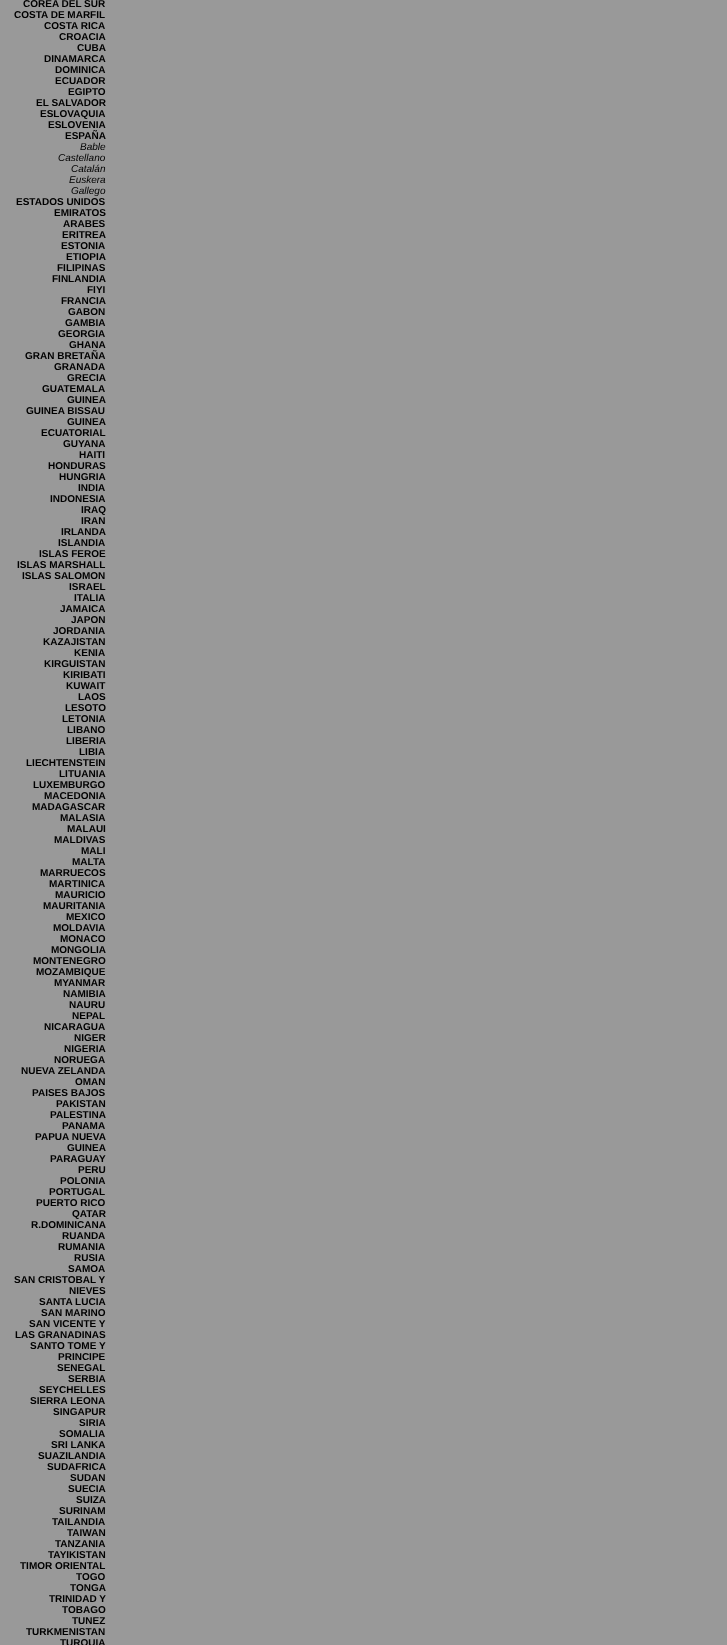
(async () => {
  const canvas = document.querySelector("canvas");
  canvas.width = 727;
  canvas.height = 1645;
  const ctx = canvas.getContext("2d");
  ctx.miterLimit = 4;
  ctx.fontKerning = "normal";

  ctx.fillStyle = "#999999";
  ctx.fillRect(0, 0, 727, 1645);
  ctx.font = "bold 10px Liberation Sans";
  ctx.fillStyle = "#000000";
  for (const [text, x, y] of [
    ["COREA DEL SUR", 23, 7],
    ["COSTA DE MARFIL", 14, 18],
    ["COSTA RICA", 44, 29],
    ["CROACIA", 59, 40],
    ["CUBA", 77, 51],
    ["DINAMARCA", 44, 62],
    ["DOMINICA", 55, 73],
    ["ECUADOR", 55, 84],
    ["EGIPTO", 68, 95],
    ["EL SALVADOR", 36, 106],
    ["ESLOVAQUIA", 40, 117],
    ["ESLOVENIA", 48, 128],
    ["ESPAÑA", 65, 139],
  ]) {
    ctx.fillText(text, x, y);
  }
  ctx.font = "italic 10px Liberation Sans";
  for (const [text, x, y] of [
    ["Bable", 80, 150],
    ["Castellano", 58, 161],
    ["Catalán", 71, 172],
    ["Euskera", 69, 183],
    ["Gallego", 71, 194],
  ]) {
    ctx.fillText(text, x, y);
  }
  ctx.font = "bold 10px Liberation Sans";
  for (const [text, x, y] of [
    ["ESTADOS UNIDOS", 16, 205],
    ["EMIRATOS", 54, 216],
    ["ARABES", 63, 227],
    ["ERITREA", 62, 238],
    ["ESTONIA", 61, 249],
    ["ETIOPIA", 66, 260],
    ["FILIPINAS", 57, 271],
    ["FINLANDIA", 52, 282],
    ["FIYI", 87, 293],
    ["FRANCIA", 61, 304],
    ["GABON", 68, 315],
    ["GAMBIA", 65, 326],
    ["GEORGIA", 58, 337],
    ["GHANA", 69, 348],
    ["GRAN BRETAÑA", 25, 359],
    ["GRANADA", 54, 370],
    ["GRECIA", 67, 381],
    ["GUATEMALA", 42, 392],
    ["GUINEA", 67, 403],
    ["GUINEA BISSAU", 26, 414],
    ["GUINEA", 67, 425],
    ["ECUATORIAL", 41, 436],
    ["GUYANA", 63, 447],
    ["HAITI", 79, 458],
    ["HONDURAS", 48, 469],
    ["HUNGRIA", 59, 480],
    ["INDIA", 78, 491],
    ["INDONESIA", 50, 502],
    ["IRAQ", 81, 513],
    ["IRAN", 81, 524],
    ["IRLANDA", 61, 535],
    ["ISLANDIA", 58, 546],
    ["ISLAS FEROE", 39, 557],
    ["ISLAS MARSHALL", 17, 568],
    ["ISLAS SALOMON", 22, 579],
    ["ISRAEL", 69, 590],
    ["ITALIA", 74, 601],
    ["JAMAICA", 60, 612],
    ["JAPON", 71, 623],
    ["JORDANIA", 53, 634],
    ["KAZAJISTAN", 43, 645],
    ["KENIA", 74, 656],
    ["KIRGUISTAN", 44, 667],
    ["KIRIBATI", 63, 678],
    ["KUWAIT", 66, 689],
    ["LAOS", 78, 700],
    ["LESOTO", 65, 711],
    ["LETONIA", 62, 722],
    ["LIBANO", 67, 733],
    ["LIBERIA", 66, 744],
    ["LIBIA", 79, 755],
    ["LIECHTENSTEIN", 26, 766],
    ["LITUANIA", 59, 777],
    ["LUXEMBURGO", 33, 788],
    ["MACEDONIA", 44, 799],
    ["MADAGASCAR", 32, 810],
    ["MALASIA", 60, 821],
    ["MALAUI", 67, 832],
    ["MALDIVAS", 54, 843],
    ["MALI", 81, 854],
    ["MALTA", 72, 865],
    ["MARRUECOS", 40, 876],
    ["MARTINICA", 49, 887],
    ["MAURICIO", 55, 898],
    ["MAURITANIA", 43, 909],
    ["MEXICO", 66, 920],
    ["MOLDAVIA", 53, 931],
    ["MONACO", 60, 942],
    ["MONGOLIA", 51, 953],
    ["MONTENEGRO", 33, 964],
    ["MOZAMBIQUE", 36, 975],
    ["MYANMAR", 54, 986],
    ["NAMIBIA", 63, 997],
    ["NAURU", 69, 1008],
    ["NEPAL", 72, 1019],
    ["NICARAGUA", 44, 1030],
    ["NIGER", 74, 1041],
    ["NIGERIA", 64, 1052],
    ["NORUEGA", 54, 1063],
    ["NUEVA ZELANDA", 21, 1074],
    ["OMAN", 75, 1085],
    ["PAISES BAJOS", 32, 1096],
    ["PAKISTAN", 56, 1107],
    ["PALESTINA", 50, 1118],
    ["PANAMA", 62, 1129],
    ["PAPUA NUEVA", 35, 1140],
    ["GUINEA", 67, 1151],
    ["PARAGUAY", 50, 1162],
    ["PERU", 78, 1173],
    ["POLONIA", 60, 1184],
    ["PORTUGAL", 49, 1195],
    ["PUERTO RICO", 36, 1206],
    ["QATAR", 72, 1217],
    ["R.DOMINICANA", 31, 1228],
    ["RUANDA", 62, 1239],
    ["RUMANIA", 58, 1250],
    ["RUSIA", 74, 1261],
    ["SAMOA", 68, 1272],
    ["SAN CRISTOBAL Y", 14, 1283],
    ["NIEVES", 69, 1294],
    ["SANTA LUCIA", 39, 1305],
    ["SAN MARINO", 41, 1316],
    ["SAN VICENTE Y", 29, 1327],
    ["LAS GRANADINAS", 15, 1338],
    ["SANTO TOME Y", 30, 1349],
    ["PRINCIPE", 58, 1360],
    ["SENEGAL", 57, 1371],
    ["SERBIA", 68, 1382],
    ["SEYCHELLES", 39, 1393],
    ["SIERRA LEONA", 30, 1404],
    ["SINGAPUR", 53, 1415],
    ["SIRIA", 79, 1426],
    ["SOMALIA", 59, 1437],
    ["SRI LANKA", 51, 1448],
    ["SUAZILANDIA", 38, 1459],
    ["SUDAFRICA", 47, 1470],
    ["SUDAN", 70, 1481],
    ["SUECIA", 68, 1492],
    ["SUIZA", 76, 1503],
    ["SURINAM", 59, 1514],
    ["TAILANDIA", 52, 1525],
    ["TAIWAN", 67, 1536],
    ["TANZANIA", 55, 1547],
    ["TAYIKISTAN", 48, 1558],
    ["TIMOR ORIENTAL", 20, 1569],
    ["TOGO", 76, 1580],
    ["TONGA", 70, 1591],
    ["TRINIDAD Y", 49, 1602],
    ["TOBAGO", 62, 1613],
    ["TUNEZ", 72, 1624],
    ["TURKMENISTAN", 26, 1635],
    ["TURQUIA", 60, 1646],
  ]) {
    ctx.fillText(text, x, y);
  }
})();
